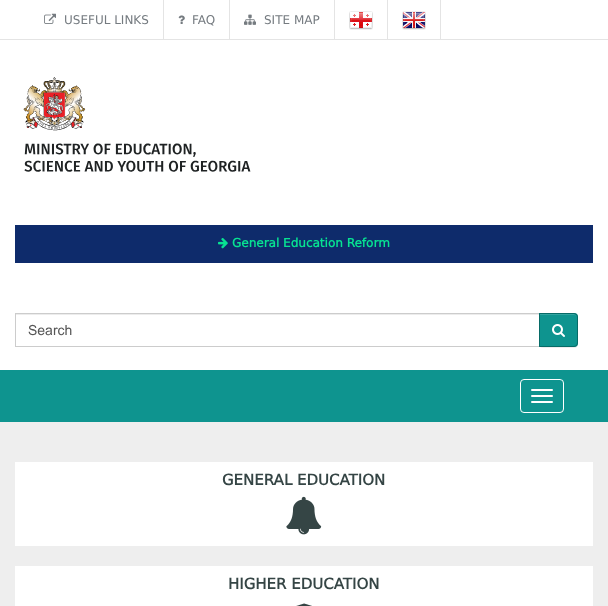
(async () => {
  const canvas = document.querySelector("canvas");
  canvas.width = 608;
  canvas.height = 606;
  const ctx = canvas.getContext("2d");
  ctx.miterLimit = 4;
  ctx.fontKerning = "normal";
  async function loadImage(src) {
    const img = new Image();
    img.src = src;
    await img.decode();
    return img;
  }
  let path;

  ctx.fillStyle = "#eeeeee";
  ctx.fillRect(0, 0, 608, 606);
  for (const [x, y, w, h, color] of [
    [0, 0, 608, 370, "#ffffff"],
    [0, 39, 608, 1, "#e4e4e4"],
    [163, 0, 1, 40, "#e4e4e4"],
  ]) {
    ctx.fillStyle = color;
    ctx.fillRect(x, y, w, h);
  }
  ctx.drawImage(await loadImage("img/1.png"), 44, 13, 12, 11);
  ctx.fillRect(229, 0, 1, 40);
  ctx.drawImage(await loadImage("img/2.png"), 178, 15, 7, 9);
  ctx.fillRect(334, 0, 1, 40);
  ctx.drawImage(await loadImage("img/3.png"), 244, 14, 12, 11);
  ctx.fillRect(387, 0, 1, 40);
  ctx.drawImage(await loadImage("img/4.png"), 349, 11, 24, 19);
  ctx.fillRect(440, 0, 1, 40);
  ctx.drawImage(await loadImage("img/5.png"), 402, 11, 24, 19);
  ctx.drawImage(await loadImage("img/6.png"), 23, 77, 228, 95);
  ctx.fillStyle = "#0e2b6b";
  ctx.fillRect(15, 225, 578, 38);
  ctx.drawImage(await loadImage("img/7.png"), 218, 238, 10, 11);
  ctx.fillStyle = "#ececec";
  ctx.fillRect(16, 314, 523, 1);
  ctx.strokeStyle = "#cccccc";
  ctx.strokeRect(15.5, 313.5, 524, 33);
  ctx.fillStyle = "rgba(0, 0, 0, 0.07)";
  ctx.filter = "blur(0.5px)";
  ctx.beginPath();
  ctx.roundRect(539, 314, 39, 34, 4);
  ctx.fill();
  ctx.filter = "none";
  ctx.fillStyle = "#0e948f";
  ctx.beginPath();
  ctx.roundRect(539, 313, 39, 34, [0, 4, 4, 0]);
  ctx.fill();
  ctx.fillStyle = "#32a4a0";
  path = new Path2D("M540 315H574C576 315 577 316 577 318V317C577 315.5 575.5 314 574 314H540Z");
  ctx.fill(path);
  ctx.beginPath();
  ctx.roundRect(539.5, 313.5, 38, 33, [0, 3.5, 3.5, 0]);
  ctx.strokeStyle = "#076b67";
  ctx.stroke();
  ctx.drawImage(await loadImage("img/8.png"), 552, 324, 13, 13);
  ctx.fillStyle = "#0e948f";
  ctx.fillRect(0, 370, 608, 52);
  ctx.beginPath();
  ctx.roundRect(520.5, 379.5, 43, 33, 3.5);
  ctx.strokeStyle = "#ffffff";
  ctx.stroke();
  ctx.fillStyle = "#ffffff";
  ctx.beginPath();
  ctx.roundRect(531, 389, 22, 2, 1);
  ctx.fill();
  ctx.beginPath();
  ctx.roundRect(531, 395, 22, 2, 1);
  ctx.fill();
  ctx.beginPath();
  ctx.roundRect(531, 401, 22, 2, 1);
  ctx.fill();
  ctx.fillRect(15, 462, 578, 84);
  ctx.drawImage(await loadImage("img/9.png"), 286, 496, 36, 39);
  ctx.fillRect(15, 566, 578, 40);
  ctx.drawImage(await loadImage("img/10.png"), 296, 603, 16, 3);
  ctx.font = "12px 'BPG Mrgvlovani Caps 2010'";
  ctx.fillStyle = "#757b80";
  for (const [text, x, y] of [
    ["USEFUL LINKS", 64, 24],
    ["FAQ", 192, 24],
    ["SITE MAP", 264, 24],
  ]) {
    ctx.fillText(text, x, y);
  }
  ctx.font = "bold 12px 'BPG Mrgvlovani Caps 2010'";
  ctx.fillStyle = "#07e292";
  ctx.fillText("General Education Reform", 232, 247);
  ctx.font = "14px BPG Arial";
  ctx.fillStyle = "#555555";
  ctx.fillText("Search", 28, 335);
  ctx.font = "bold 15px 'BPG Mrgvlovani Caps 2010'";
  ctx.fillStyle = "#354545";
  ctx.fillText("GENERAL EDUCATION", 222, 485);
  ctx.fillText("HIGHER EDUCATION", 228, 589);
})();
